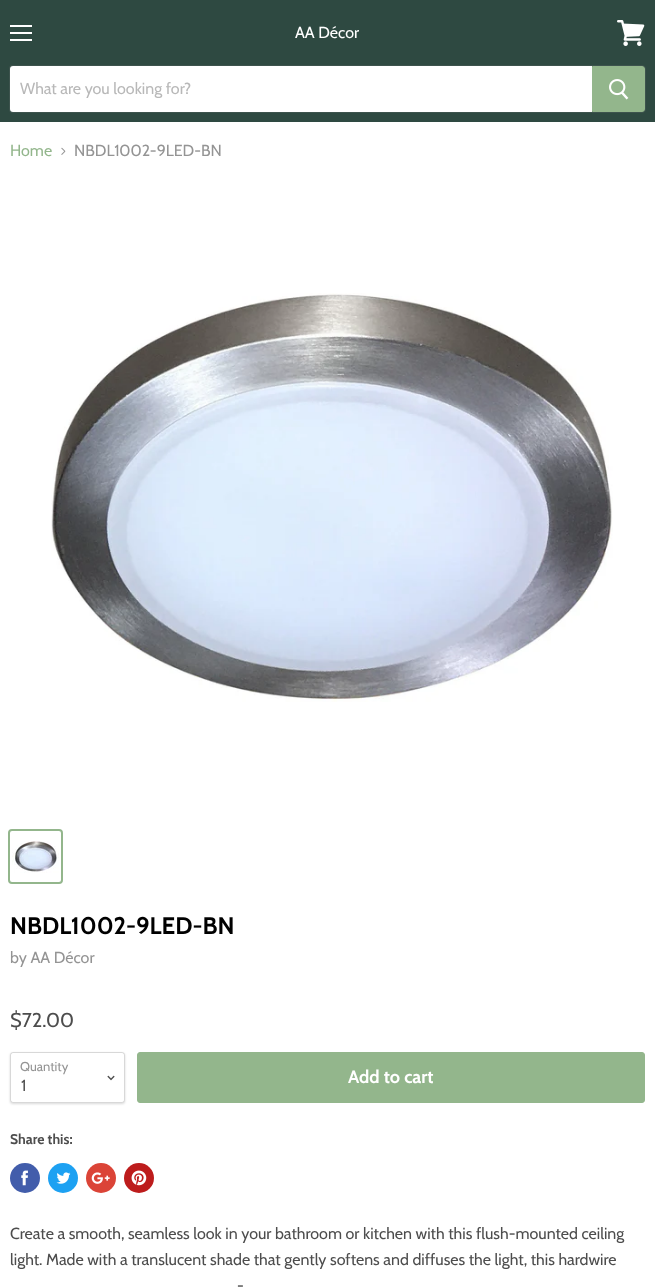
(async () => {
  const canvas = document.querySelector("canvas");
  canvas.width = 655;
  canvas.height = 1287;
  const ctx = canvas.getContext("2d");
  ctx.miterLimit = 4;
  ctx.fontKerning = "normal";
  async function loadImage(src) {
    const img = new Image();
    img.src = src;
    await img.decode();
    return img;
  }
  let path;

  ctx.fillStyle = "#ffffff";
  ctx.fillRect(0, 0, 655, 1287);
  for (const [x, y, w, h, color] of [
    [0, 0, 655, 122, "#2e4941"],
    [10, 25, 22, 2, "#ffffff"],
    [10, 32, 22, 2, "#ffffff"],
    [10, 39, 22, 2, "#ffffff"],
  ]) {
    ctx.fillStyle = color;
    ctx.fillRect(x, y, w, h);
  }
  ctx.drawImage(await loadImage("img/1.png"), 617, 20, 28, 26);
  ctx.beginPath();
  ctx.roundRect(9.5, 65.5, 636, 47, [2.5, 3.5, 3.5, 2.5]);
  ctx.strokeStyle = "rgba(127, 127, 127, 0.2)";
  ctx.stroke();
  ctx.beginPath();
  ctx.roundRect(10, 66, 582, 46, [3, 0, 0, 3]);
  ctx.fill();
  ctx.fillStyle = "#93b68c";
  ctx.beginPath();
  ctx.roundRect(592.5, 66.5, 52, 45, [0, 2.5, 2.5, 0]);
  ctx.fill();
  ctx.strokeStyle = "#93b68c";
  ctx.stroke();
  ctx.drawImage(await loadImage("img/2.png"), 609, 79, 20, 21);
  ctx.drawImage(await loadImage("img/3.png"), 61, 147, 5, 8);
  ctx.drawImage(await loadImage("img/4.png"), 51, 293, 562, 409);
  ctx.beginPath();
  ctx.roundRect(9, 830, 53, 53, 3);
  ctx.lineWidth = 2;
  ctx.stroke();
  ctx.drawImage(await loadImage("img/5.png"), 12, 841, 47, 32);
  ctx.save();
  path = new Path2D("M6 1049H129V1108H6ZM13 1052H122C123.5 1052 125 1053.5 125 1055V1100C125 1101.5 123.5 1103 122 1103H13C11.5 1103 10 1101.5 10 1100V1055C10 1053.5 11.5 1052 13 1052Z");
  ctx.clip(path, "evenodd");
  ctx.fillStyle = "rgba(0, 0, 0, 0.15)";
  ctx.filter = "blur(1px)";
  ctx.beginPath();
  ctx.roundRect(10, 1053, 115, 51, 3);
  ctx.fill();
  ctx.filter = "none";
  ctx.restore();
  ctx.beginPath();
  ctx.roundRect(10.5, 1052.5, 114, 50, 2.5);
  ctx.strokeStyle = "rgba(127, 127, 127, 0.3)";
  ctx.lineWidth = 1;
  ctx.stroke();
  ctx.drawImage(await loadImage("img/6.png"), 107, 1075, 8, 6);
  ctx.beginPath();
  ctx.roundRect(137.5, 1052.5, 507, 50, 2.5);
  ctx.fill();
  ctx.strokeStyle = "#93b68c";
  ctx.stroke();
  ctx.fillStyle = "#425dab";
  ctx.beginPath();
  ctx.arc(25, 1178, 15, 0, Math.PI * 2);
  ctx.fill();
  ctx.drawImage(await loadImage("img/7.png"), 21, 1170, 7, 16);
  ctx.fillStyle = "#1da1f2";
  ctx.beginPath();
  ctx.arc(63, 1178, 15, 0, Math.PI * 2);
  ctx.fill();
  ctx.drawImage(await loadImage("img/8.png"), 56, 1172, 15, 12);
  ctx.fillStyle = "#db4437";
  ctx.beginPath();
  ctx.arc(101, 1178, 15, 0, Math.PI * 2);
  ctx.fill();
  ctx.drawImage(await loadImage("img/9.png"), 91, 1172, 19, 12);
  ctx.fillStyle = "#bd1c1c";
  ctx.beginPath();
  ctx.arc(139, 1178, 15, 0, Math.PI * 2);
  ctx.fill();
  ctx.drawImage(await loadImage("img/10.png"), 131, 1170, 16, 16);
  ctx.font = "16px Cabin";
  ctx.fillStyle = "#ffffff";
  ctx.fillText("AA Décor", 295, 38);
  ctx.fillStyle = "#b8b8b8";
  ctx.fillText("What are you looking for?", 20, 94);
  ctx.fillStyle = "#93b68c";
  ctx.fillText("Home", 10, 156);
  ctx.fillStyle = "#949494";
  ctx.fillText("NBDL1002-9LED-BN", 74, 156);
  ctx.font = "bold 24px Cabin";
  ctx.fillStyle = "#000000";
  ctx.fillText("NBDL1002-9LED-BN", 10, 934);
  ctx.font = "16px Cabin";
  ctx.fillStyle = "#949494";
  ctx.fillText("by AA Décor", 10, 963);
  ctx.font = "20px Cabin";
  ctx.fillStyle = "#4d4d4d";
  ctx.fillText("$72.00", 10, 1027);
  ctx.font = "13px Cabin";
  ctx.fillStyle = "#949494";
  ctx.fillText("Quantity", 20, 1071);
  ctx.font = "16px Cabin";
  ctx.fillStyle = "#4d4d4d";
  ctx.fillText("1", 21, 1091);
  ctx.font = "bold 18px Cabin";
  ctx.fillStyle = "#ffffff";
  ctx.fillText("Add to cart", 348, 1083);
  ctx.font = "bold 14px Cabin";
  ctx.fillStyle = "#4d4d4d";
  ctx.fillText("Share this:", 10, 1144);
  ctx.font = "16px Cabin";
  for (const [text, x, y] of [
    ["Create a smooth, seamless look in your bathroom or kitchen with this flush-mounted ceiling", 10, 1239],
    ["light. Made with a translucent shade that gently softens and diffuses the light, this hardwire", 10, 1265],
    ["-", 237, 1291],
  ]) {
    ctx.fillText(text, x, y);
  }
})();
